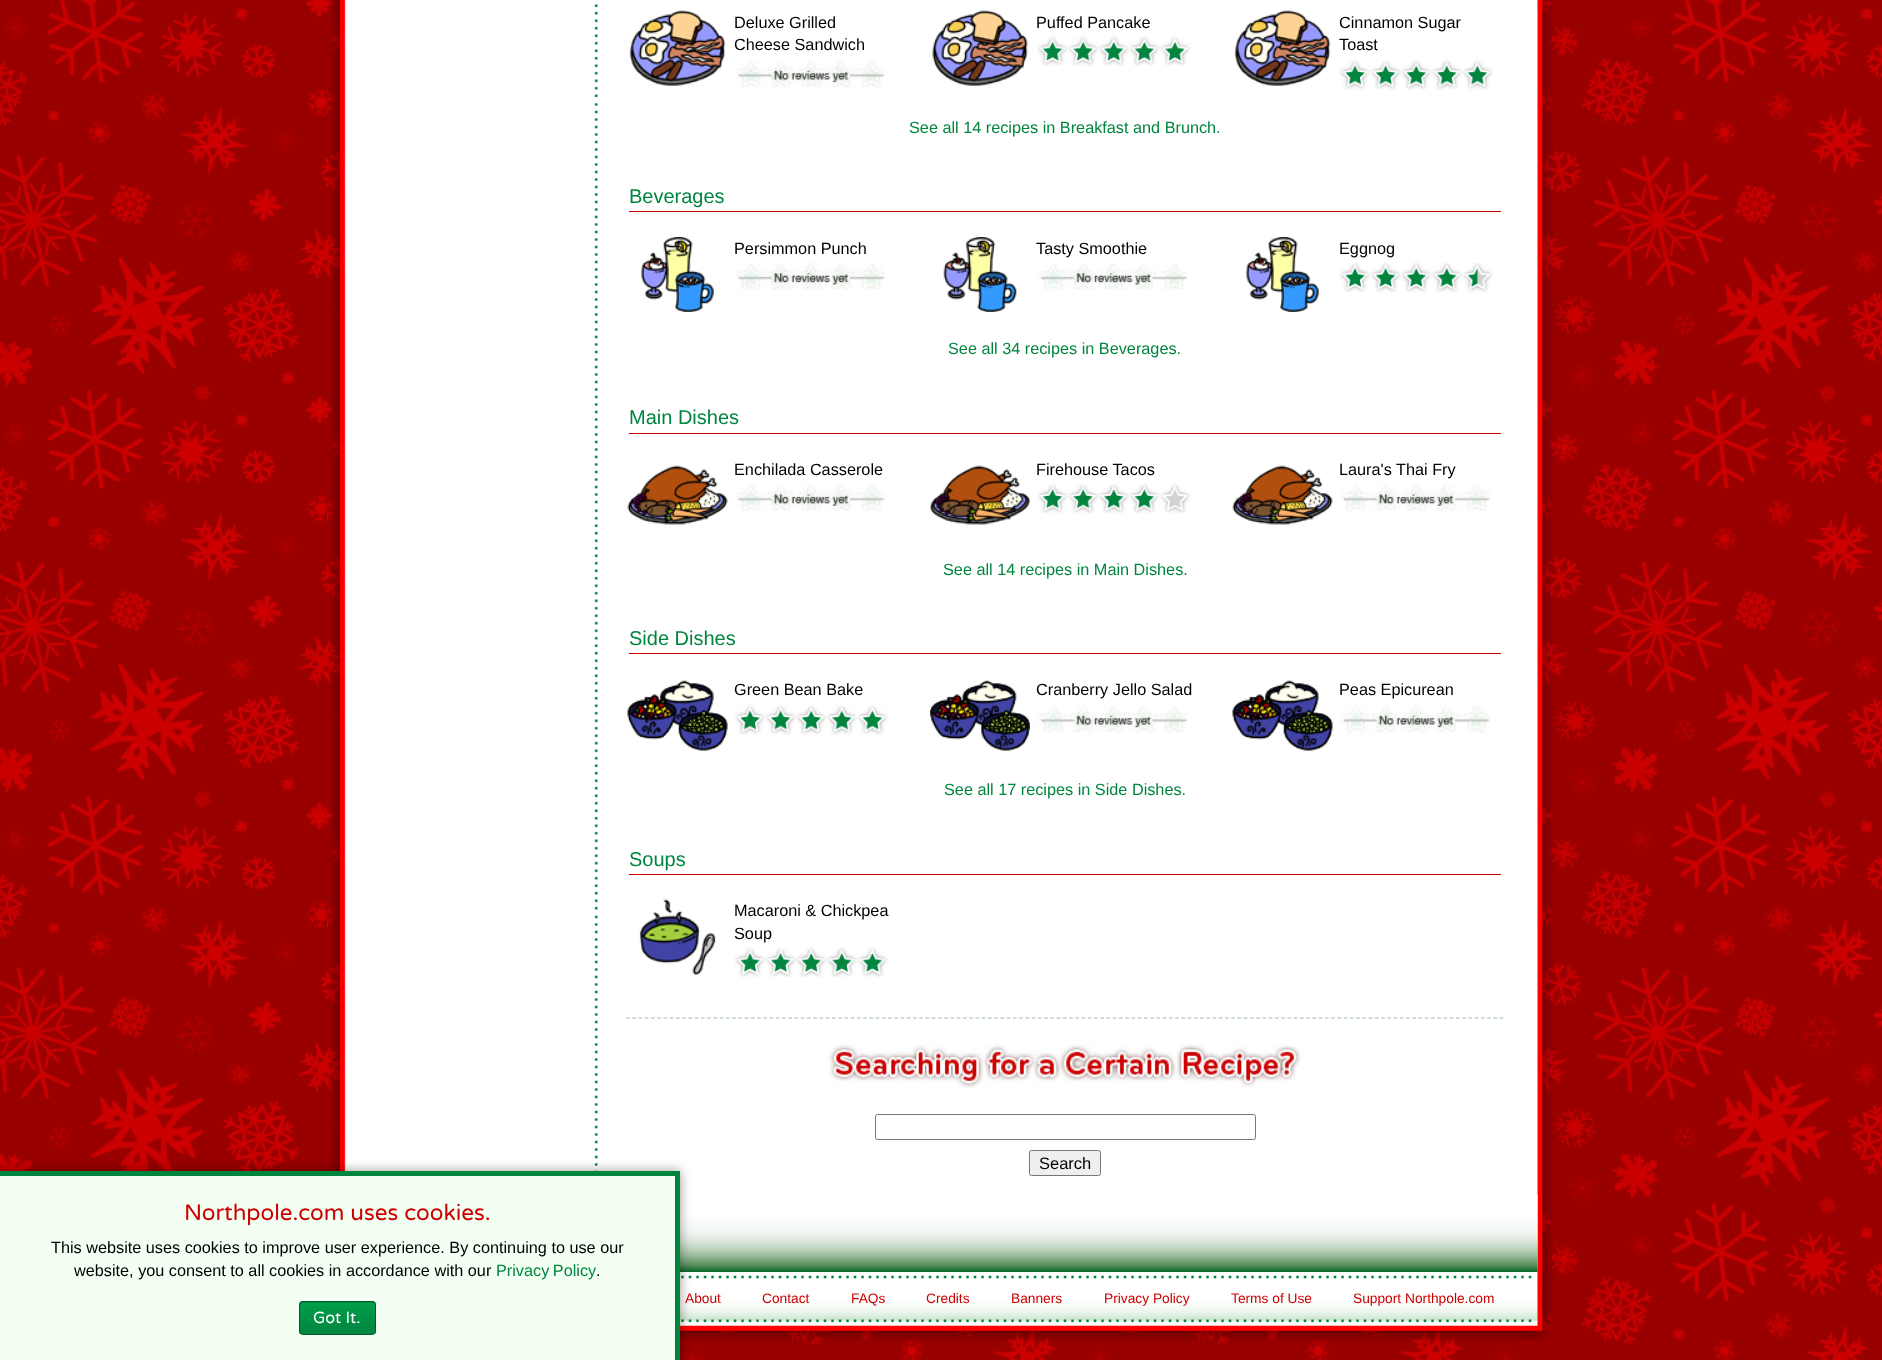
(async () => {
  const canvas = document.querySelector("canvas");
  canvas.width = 1882;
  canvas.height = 1360;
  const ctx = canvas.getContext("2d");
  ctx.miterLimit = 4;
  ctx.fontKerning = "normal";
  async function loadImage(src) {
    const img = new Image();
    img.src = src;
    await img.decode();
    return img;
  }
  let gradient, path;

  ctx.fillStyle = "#ffffff";
  ctx.fillRect(0, 0, 1882, 1360);
  ctx.drawImage(await loadImage("img/1.png"), 0, 0, 1882, 1360);
  ctx.drawImage(await loadImage("img/2.png"), 328, 0, 1226, 1272);
  ctx.drawImage(await loadImage("img/3.png"), 680, 1194, 858, 78);
  ctx.drawImage(await loadImage("img/31.png"), 680, 1272, 874, 70);
  ctx.fillStyle = "rgba(0, 0, 0, 0.4)";
  ctx.filter = "blur(6px)";
  ctx.beginPath();
  ctx.rect(0, 1171, 680, 189);
  ctx.fill();
  ctx.filter = "none";
  for (const [x, y, w, h, color] of [
    [0, 1176, 675, 184, "#f3fff3"],
    [0, 1171, 680, 5, "#00853f"],
    [675, 1171, 5, 189, "#00853f"],
  ]) {
    ctx.fillStyle = color;
    ctx.fillRect(x, y, w, h);
  }
  ctx.save();
  ctx.beginPath();
  ctx.roundRect(299, 1301, 77, 34, 4);
  ctx.clip();
  gradient = ctx.createLinearGradient(300, 1271, 300, 1303);
  gradient.addColorStop(0.05, "#009d4a");
  gradient.addColorStop(1, "#00853f");
  ctx.fillStyle = gradient;
  ctx.fillRect(299, 1301, 77, 2);
  gradient = ctx.createLinearGradient(300, 1303, 300, 1334);
  gradient.addColorStop(0.05, "#009d4a");
  gradient.addColorStop(1, "#00853f");
  ctx.fillStyle = gradient;
  ctx.fillRect(299, 1303, 77, 31);
  ctx.restore();
  ctx.beginPath();
  ctx.roundRect(299.5, 1301.5, 76, 33, 3.5);
  ctx.strokeStyle = "#005a2b";
  ctx.stroke();
  ctx.drawImage(await loadImage("img/4.png"), 629, 10, 97, 76);
  ctx.drawImage(await loadImage("img/5.png"), 733, 60, 152, 28);
  ctx.drawImage(await loadImage("img/6.png"), 932, 10, 96, 76);
  ctx.drawImage(await loadImage("img/7.png"), 1037, 35, 154, 32);
  ctx.drawImage(await loadImage("img/8.png"), 1234, 10, 97, 76);
  ctx.drawImage(await loadImage("img/9.png"), 1339, 59, 154, 32);
  ctx.fillStyle = "#cc0000";
  ctx.fillRect(629, 211, 872, 1);
  ctx.drawImage(await loadImage("img/10.png"), 641, 237, 73, 75);
  ctx.drawImage(await loadImage("img/11.png"), 736, 262, 149, 28);
  ctx.drawImage(await loadImage("img/12.png"), 943, 237, 74, 75);
  ctx.drawImage(await loadImage("img/13.png"), 1035, 263, 153, 27);
  ctx.drawImage(await loadImage("img/14.png"), 1246, 237, 73, 75);
  ctx.drawImage(await loadImage("img/15.png"), 1339, 262, 154, 31);
  ctx.fillRect(629, 433, 872, 1);
  ctx.drawImage(await loadImage("img/16.png"), 627, 465, 101, 60);
  ctx.drawImage(await loadImage("img/17.png"), 736, 484, 150, 27);
  ctx.drawImage(await loadImage("img/18.png"), 930, 465, 100, 60);
  ctx.drawImage(await loadImage("img/19.png"), 1037, 483, 154, 31);
  ctx.drawImage(await loadImage("img/20.png"), 1232, 465, 101, 60);
  ctx.drawImage(await loadImage("img/21.png"), 1341, 484, 150, 27);
  ctx.fillRect(629, 653, 872, 1);
  ctx.drawImage(await loadImage("img/22.png"), 627, 680, 101, 71);
  ctx.drawImage(await loadImage("img/23.png"), 734, 704, 154, 32);
  ctx.drawImage(await loadImage("img/24.png"), 930, 680, 100, 71);
  ctx.drawImage(await loadImage("img/25.png"), 1035, 705, 153, 28);
  ctx.drawImage(await loadImage("img/26.png"), 1232, 680, 101, 71);
  ctx.drawImage(await loadImage("img/27.png"), 1338, 705, 152, 28);
  ctx.fillRect(629, 874, 872, 1);
  ctx.drawImage(await loadImage("img/28.png"), 639, 899, 77, 76);
  ctx.drawImage(await loadImage("img/29.png"), 734, 947, 154, 31);
  path = new Path2D("M626 1018H1504");
  ctx.strokeStyle = "#a2bcaf";
  ctx.lineWidth = 1.2;
  ctx.setLineDash([3.75, 2.49]);
  ctx.stroke(path);
  ctx.drawImage(await loadImage("img/30.png"), 826, 1044, 478, 46);
  ctx.beginPath();
  ctx.roundRect(875.5, 1114.5, 380, 25, 2);
  ctx.strokeStyle = "#767676";
  ctx.lineWidth = 1;
  ctx.setLineDash([]);
  ctx.stroke();
  ctx.fillStyle = "#efefef";
  ctx.beginPath();
  ctx.roundRect(1029.5, 1150.5, 71, 25, 2);
  ctx.fill();
  ctx.stroke();
  ctx.font = "22.5px Varela Round";
  ctx.fillStyle = "#cc0000";
  ctx.fillText("Northpole.com uses cookies.", 184, 1220);
  ctx.font = "16.25px Liberation Sans";
  ctx.fillStyle = "#000000";
  ctx.fillText("This website uses cookies to improve user experience. By continuing to use our", 51, 1253);
  ctx.fillText("website, you consent to all cookies in accordance with our", 74, 1276);
  ctx.wordSpacing = "-1px";
  ctx.fillStyle = "#00853f";
  ctx.fillText("Privacy Policy", 496, 1276);
  ctx.wordSpacing = "0px";
  ctx.fillStyle = "#000000";
  ctx.fillText(".", 596, 1276);
  ctx.font = "16.25px Varela Round";
  ctx.fillStyle = "#ffffff";
  ctx.fillText("Got It.", 313, 1323);
  ctx.font = "16.25px Liberation Sans";
  ctx.fillStyle = "#000000";
  for (const [text, x, y] of [
    ["Deluxe Grilled", 734, 28],
    ["Cheese Sandwich", 734, 50],
    ["Puffed Pancake", 1036, 28],
    ["Cinnamon Sugar", 1339, 28],
    ["Toast", 1339, 50],
  ]) {
    ctx.fillText(text, x, y);
  }
  ctx.fillStyle = "#00853f";
  ctx.fillText("See all 14 recipes in Breakfast and Brunch.", 909, 133);
  ctx.font = "20px Liberation Sans";
  ctx.fillText("Beverages", 629, 203);
  ctx.font = "16.25px Liberation Sans";
  ctx.fillStyle = "#000000";
  for (const [text, x, y] of [
    ["Persimmon Punch", 734, 254],
    ["Tasty Smoothie", 1036, 254],
    ["Eggnog", 1339, 254],
  ]) {
    ctx.fillText(text, x, y);
  }
  ctx.fillStyle = "#00853f";
  ctx.fillText("See all 34 recipes in Beverages.", 948, 354);
  ctx.font = "20px Liberation Sans";
  ctx.fillText("Main Dishes", 629, 424);
  ctx.font = "16.25px Liberation Sans";
  ctx.fillStyle = "#000000";
  for (const [text, x, y] of [
    ["Enchilada Casserole", 734, 475],
    ["Firehouse Tacos", 1036, 475],
    ["Laura's Thai Fry", 1339, 475],
  ]) {
    ctx.fillText(text, x, y);
  }
  ctx.fillStyle = "#00853f";
  ctx.fillText("See all 14 recipes in Main Dishes.", 943, 575);
  ctx.font = "20px Liberation Sans";
  ctx.fillText("Side Dishes", 629, 645);
  ctx.font = "16.25px Liberation Sans";
  ctx.fillStyle = "#000000";
  for (const [text, x, y] of [
    ["Green Bean Bake", 734, 695],
    ["Cranberry Jello Salad", 1036, 695],
    ["Peas Epicurean", 1339, 695],
  ]) {
    ctx.fillText(text, x, y);
  }
  ctx.fillStyle = "#00853f";
  ctx.fillText("See all 17 recipes in Side Dishes.", 944, 795);
  ctx.font = "20px Liberation Sans";
  ctx.fillText("Soups", 629, 866);
  ctx.font = "16.25px Liberation Sans";
  ctx.fillStyle = "#000000";
  ctx.fillText("Macaroni & Chickpea", 734, 916);
  ctx.fillText("Soup", 734, 939);
  ctx.font = "16.5px Liberation Sans";
  ctx.fillText("Search", 1039, 1169);
  ctx.font = "13.75px Liberation Sans";
  ctx.fillStyle = "#cc0000";
  for (const [text, x, y] of [
    ["About", 685, 1303],
    ["Contact", 762, 1303],
    ["FAQs", 851, 1303],
    ["Credits", 926, 1303],
    ["Banners", 1011, 1303],
    ["Privacy Policy", 1104, 1303],
    ["Terms of Use", 1231, 1303],
    ["Support Northpole.com", 1353, 1303],
  ]) {
    ctx.fillText(text, x, y);
  }
})();
